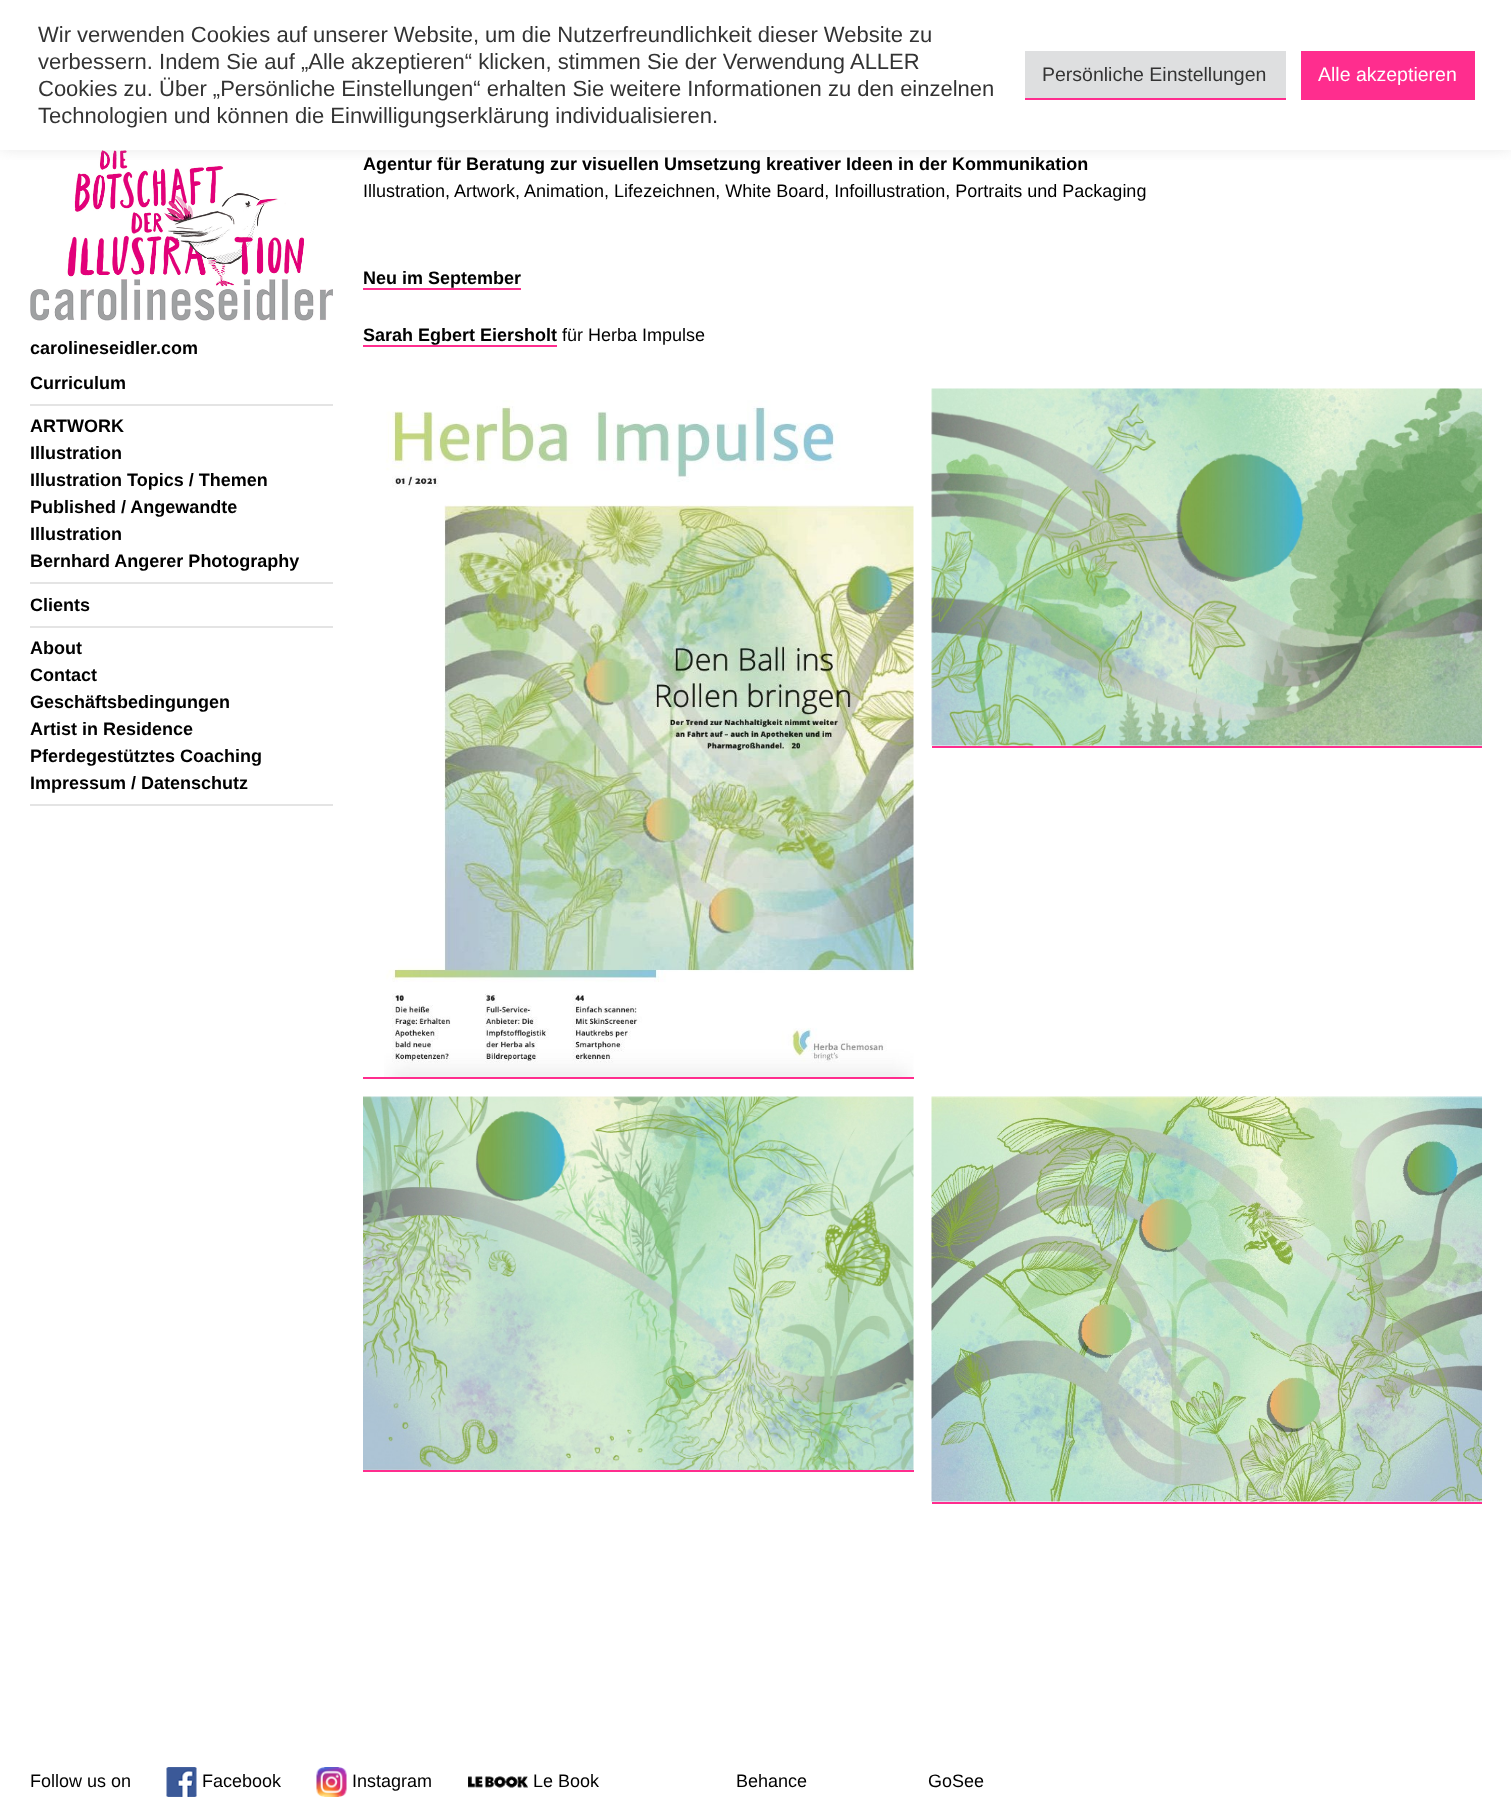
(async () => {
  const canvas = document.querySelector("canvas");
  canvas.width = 1511;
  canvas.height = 1804;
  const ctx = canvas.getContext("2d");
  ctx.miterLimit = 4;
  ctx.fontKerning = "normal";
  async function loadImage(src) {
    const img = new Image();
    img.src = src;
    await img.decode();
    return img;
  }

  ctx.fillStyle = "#ffffff";
  ctx.fillRect(0, 0, 1511, 1804);
  ctx.drawImage(await loadImage("img/8.png"), 30, 150, 303, 171);
  ctx.save();
  ctx.beginPath();
  ctx.rect(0, 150, 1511, 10);
  ctx.clip();
  ctx.fillStyle = "rgba(172, 171, 171, 0.3)";
  ctx.filter = "blur(7.5px)";
  ctx.beginPath();
  ctx.rect(0, -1, 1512, 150);
  ctx.fill();
  ctx.filter = "none";
  ctx.restore();
  for (const [x, y, w, h, color] of [
    [1025, 51, 261, 47, "#dedfe0"],
    [1025, 98, 261, 2, "#ff2d8e"],
    [1301, 51, 174, 49, "#ff2d8e"],
    [363, 288, 158, 2, "#ff2d8e"],
    [363, 345, 194, 2, "#ff2d8e"],
    [363, 1077, 551, 2, "#ff2d8e"],
  ]) {
    ctx.fillStyle = color;
    ctx.fillRect(x, y, w, h);
  }
  ctx.drawImage(await loadImage("img/1.png"), 384, 400, 530, 677);
  ctx.fillRect(932, 746, 550, 2);
  ctx.drawImage(await loadImage("img/2.png"), 931, 388, 551, 358);
  ctx.fillRect(363, 1470, 551, 2);
  ctx.drawImage(await loadImage("img/3.png"), 363, 1096, 551, 374);
  ctx.fillRect(932, 1502, 550, 2);
  ctx.drawImage(await loadImage("img/4.png"), 931, 1096, 551, 406);
  ctx.drawImage(await loadImage("img/5.png"), 166, 1767, 31, 30);
  ctx.drawImage(await loadImage("img/6.png"), 316, 1767, 31, 30);
  ctx.drawImage(await loadImage("img/7.png"), 468, 1776, 60, 12);
  for (const [x, y, w, h, color] of [
    [30, 404, 303, 2, "#e4e4e4"],
    [30, 582, 303, 2, "#e4e4e4"],
    [30, 626, 303, 2, "#e4e4e4"],
    [30, 804, 303, 2, "#e4e4e4"],
  ]) {
    ctx.fillStyle = color;
    ctx.fillRect(x, y, w, h);
  }
  ctx.font = "22px Liberation Sans";
  ctx.fillStyle = "#333333";
  for (const [text, x, y] of [
    ["Wir verwenden Cookies auf unserer Website, um die Nutzerfreundlichkeit dieser Website zu", 38, 42],
    ["verbessern. Indem Sie auf „Alle akzeptieren“ klicken, stimmen Sie der Verwendung ALLER", 38, 69],
    ["Cookies zu. Über „Persönliche Einstellungen“ erhalten Sie weitere Informationen zu den einzelnen", 38, 96],
    ["Technologien und können die Einwilligungserklärung individualisieren.", 38, 123],
  ]) {
    ctx.fillText(text, x, y);
  }
  ctx.font = "19.5px Liberation Sans";
  ctx.fillText("Persönliche Einstellungen", 1042, 81);
  ctx.fillStyle = "#ffffff";
  ctx.fillText("Alle akzeptieren", 1318, 81);
  ctx.font = "bold 18px Liberation Sans";
  ctx.fillStyle = "#000000";
  ctx.fillText("Agentur für Beratung zur visuellen Umsetzung kreativer Ideen in der Kommunikation", 363, 170);
  ctx.font = "18px Liberation Sans";
  ctx.fillText("Illustration, Artwork, Animation, Lifezeichnen, White Board, Infoillustration, Portraits und Packaging", 363, 197);
  ctx.font = "bold 18px Liberation Sans";
  ctx.fillText("Neu im September", 363, 284);
  ctx.fillText("Sarah Egbert Eiersholt", 363, 341);
  ctx.font = "18px Liberation Sans";
  for (const [text, x, y] of [
    ["für Herba Impulse", 562, 341],
    ["Follow us on", 30, 1787],
    ["Facebook", 202, 1787],
    ["Instagram", 352, 1787],
    ["Le Book", 533, 1787],
    ["Behance", 736, 1787],
    ["GoSee", 928, 1787],
  ]) {
    ctx.fillText(text, x, y);
  }
  ctx.font = "bold 18px Liberation Sans";
  for (const [text, x, y] of [
    ["carolineseidler.com", 30, 354],
    ["Curriculum", 30, 389],
    ["ARTWORK", 30, 432],
    ["Illustration", 30, 459],
    ["Illustration Topics / Themen", 30, 486],
    ["Published / Angewandte", 30, 513],
    ["Illustration", 30, 540],
    ["Bernhard Angerer Photography", 30, 567],
    ["Clients", 30, 611],
    ["About", 30, 654],
    ["Contact", 30, 681],
    ["Geschäftsbedingungen", 30, 708],
    ["Artist in Residence", 30, 735],
    ["Pferdegestütztes Coaching", 30, 762],
    ["Impressum / Datenschutz", 30, 789],
  ]) {
    ctx.fillText(text, x, y);
  }
})();
